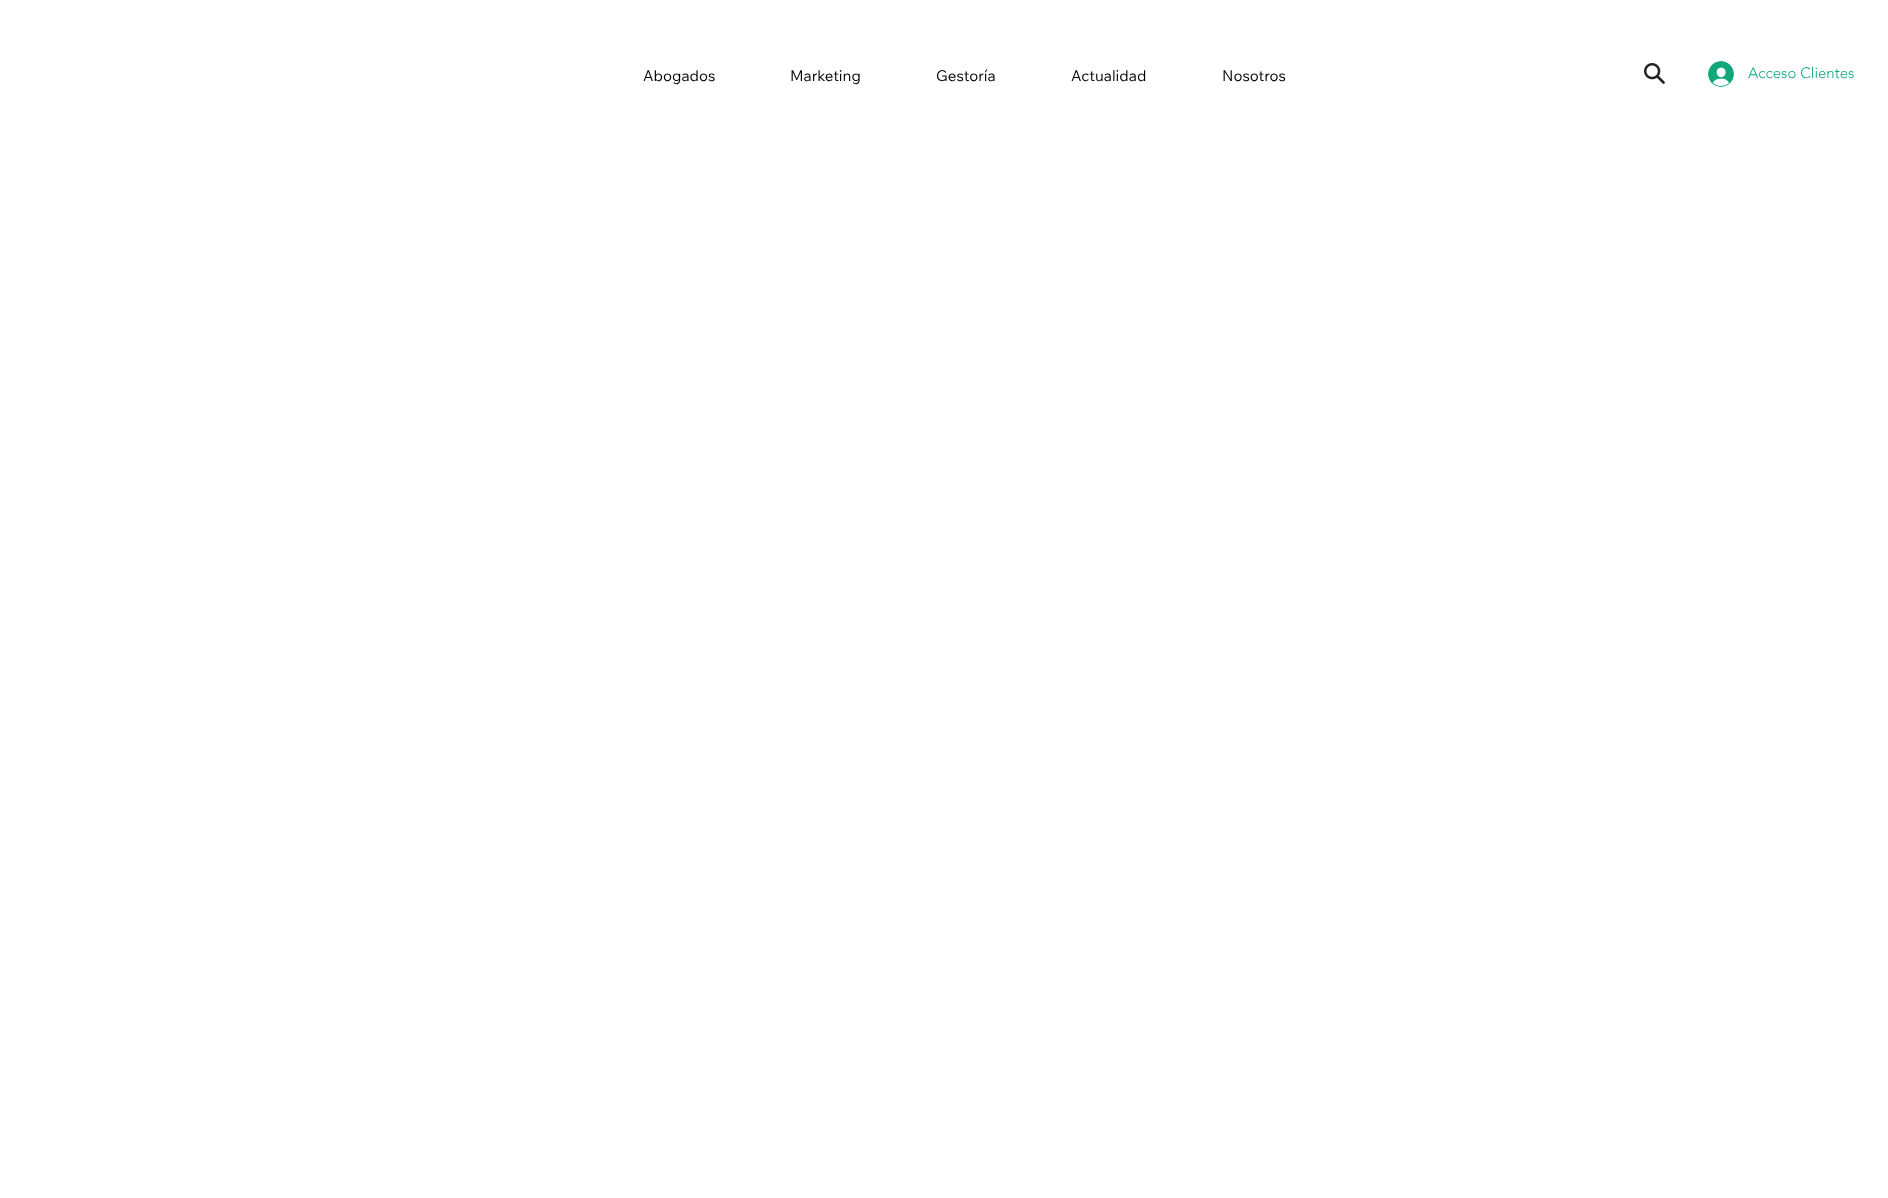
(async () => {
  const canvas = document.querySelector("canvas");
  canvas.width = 1888;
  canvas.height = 1198;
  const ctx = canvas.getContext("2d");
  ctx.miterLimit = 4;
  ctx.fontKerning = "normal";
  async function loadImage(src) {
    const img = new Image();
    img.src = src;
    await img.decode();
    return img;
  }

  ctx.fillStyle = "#ffffff";
  ctx.fillRect(0, 0, 1888, 1198);
  ctx.drawImage(await loadImage("img/1.png"), 1644, 63, 21, 21);
  ctx.drawImage(await loadImage("img/2.png"), 1708, 61, 26, 26);
  ctx.font = "15px Wix Madefor Text";
  ctx.fillStyle = "#000000";
  for (const [text, x, y] of [
    ["Abogados", 643, 81],
    ["Marketing", 790, 81],
    ["Gestoría", 936, 81],
    ["Actualidad", 1071, 81],
    ["Nosotros", 1222, 81],
  ]) {
    ctx.fillText(text, x, y);
  }
  ctx.font = "300 15px 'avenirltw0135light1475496'";
  ctx.fillStyle = "#10a77b";
  ctx.fillText("Acceso Clientes", 1748, 78);
})();
